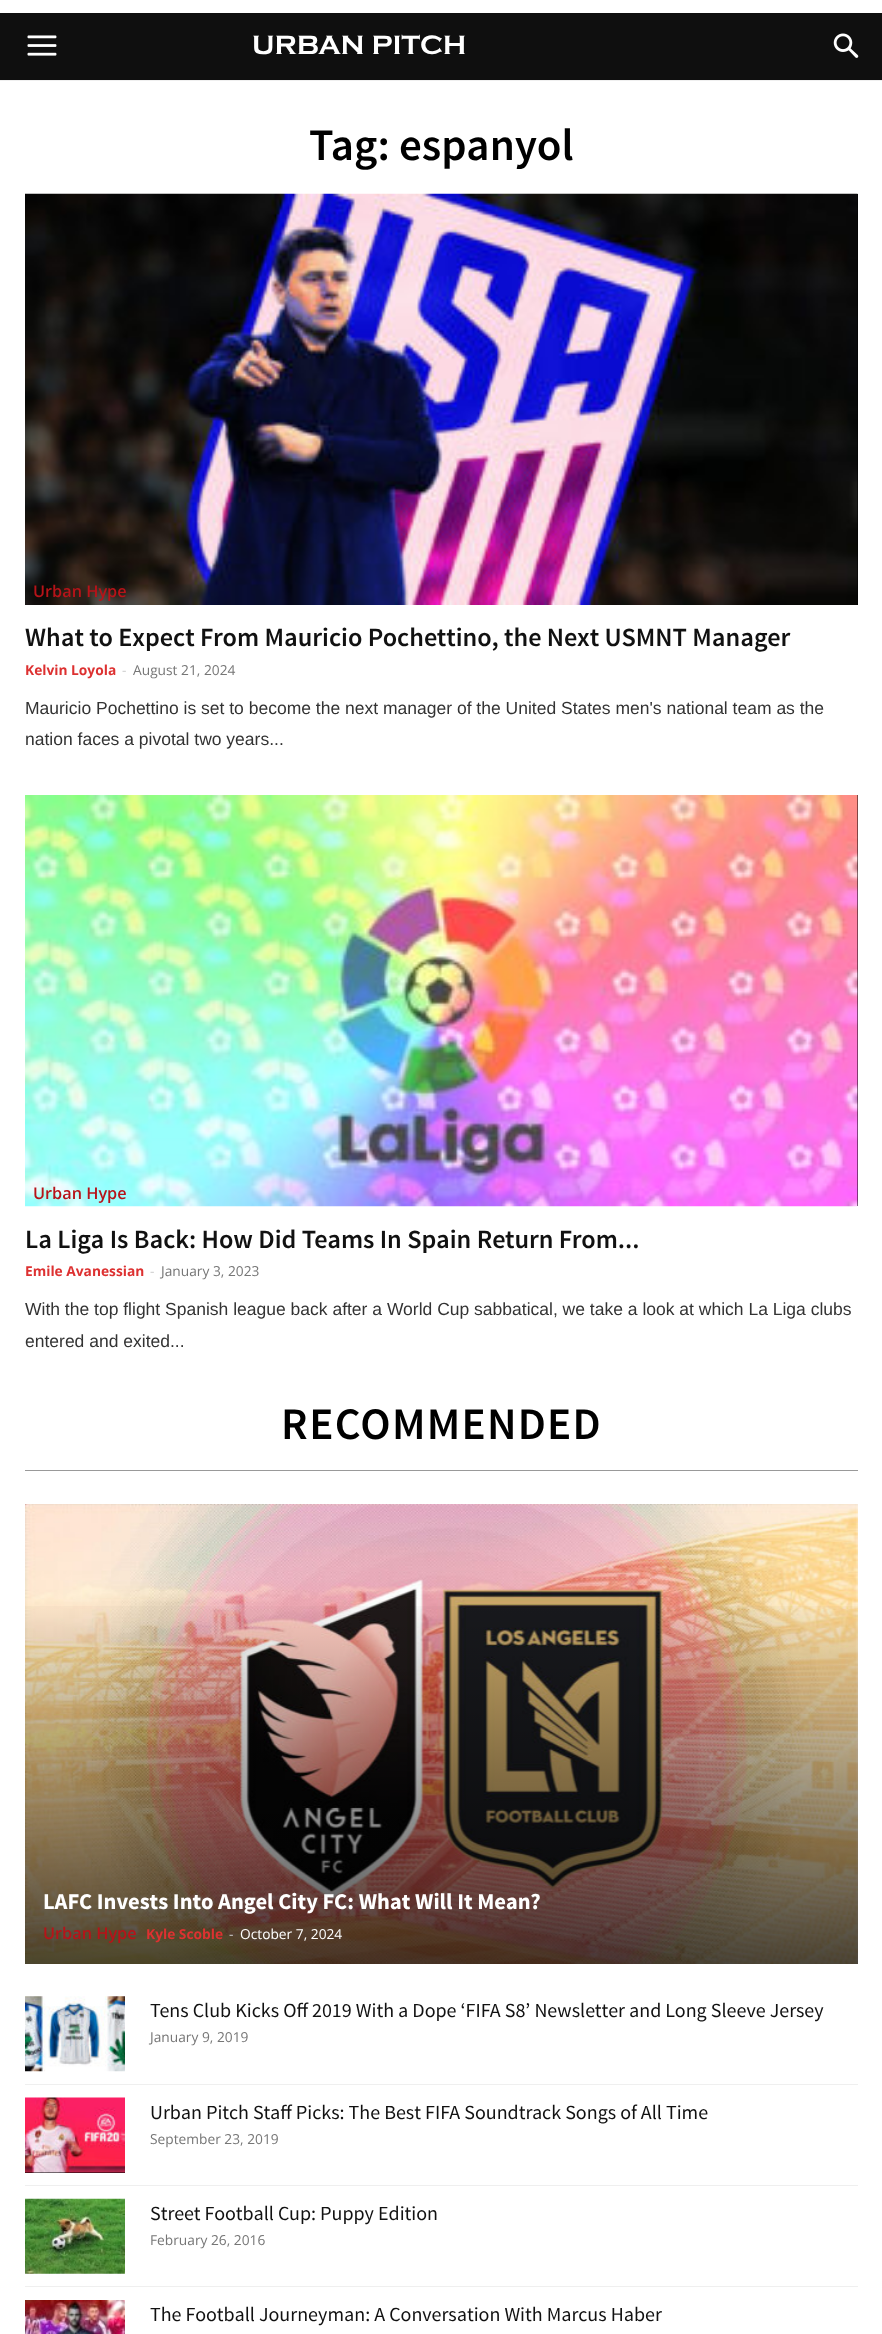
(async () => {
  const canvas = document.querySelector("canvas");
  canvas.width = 882;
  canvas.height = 2334;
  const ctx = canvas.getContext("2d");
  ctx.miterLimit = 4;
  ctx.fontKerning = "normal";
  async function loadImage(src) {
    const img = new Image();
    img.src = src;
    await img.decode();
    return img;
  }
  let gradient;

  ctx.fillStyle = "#ffffff";
  ctx.fillRect(0, 0, 882, 2334);
  ctx.fillStyle = "#efefef";
  ctx.fillRect(0, 80, 882, 1);
  ctx.fillStyle = "#0f0f0f";
  ctx.fillRect(0, 13, 882, 67);
  ctx.drawImage(await loadImage("img/1.png"), 27, 35, 30, 21);
  ctx.drawImage(await loadImage("img/2.png"), 833, 33, 26, 25);
  ctx.fillStyle = "#000000";
  ctx.fillRect(857, 194, 1, 411);
  ctx.drawImage(await loadImage("img/3.png"), 25, 193, 833, 412);
  ctx.fillRect(857, 795, 1, 411);
  ctx.drawImage(await loadImage("img/4.png"), 25, 795, 833, 412);
  ctx.fillStyle = "#999999";
  ctx.fillRect(25, 1470, 833, 1);
  ctx.drawImage(await loadImage("img/5.png"), 25, 1504, 833, 460);
  gradient = ctx.createLinearGradient(441, 1595, 441, 1964);
  gradient.addColorStop(0, "rgba(0, 0, 0, 0)");
  gradient.addColorStop(1, "rgba(0, 0, 0, 0.7)");
  ctx.fillStyle = gradient;
  ctx.fillRect(25, 1606, 833, 358);
  ctx.fillStyle = "#efefef";
  ctx.fillRect(25, 2084, 833, 1);
  ctx.drawImage(await loadImage("img/6.png"), 25, 1996, 100, 76);
  ctx.fillRect(25, 2185, 833, 1);
  ctx.fillStyle = "#000000";
  ctx.fillRect(25, 2172, 100, 1);
  ctx.drawImage(await loadImage("img/7.png"), 25, 2097, 100, 76);
  ctx.fillStyle = "#efefef";
  ctx.fillRect(25, 2286, 833, 1);
  ctx.drawImage(await loadImage("img/8.png"), 25, 2198, 100, 76);
  ctx.drawImage(await loadImage("img/9.png"), 25, 2300, 100, 34);
  ctx.font = "bold 27.5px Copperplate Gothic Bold";
  ctx.fillStyle = "#ffffff";
  ctx.fillText("URBAN PITCH", 252, 54);
  ctx.font = "600 45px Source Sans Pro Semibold";
  ctx.fillStyle = "#000000";
  ctx.fillText("Tag: espanyol", 309, 160);
  ctx.font = "600 16.25px Open Sans";
  ctx.fillStyle = "#b71319";
  ctx.fillText("Urban Hype", 33, 597);
  ctx.font = "600 26.25px Source Sans Pro Semibold";
  ctx.fillStyle = "#111111";
  ctx.fillText("What to Expect From Mauricio Pochettino, the Next USMNT Manager", 25, 646);
  ctx.font = "bold 13.75px Open Sans";
  ctx.fillStyle = "#dd3131";
  ctx.fillText("Kelvin Loyola", 25, 675);
  ctx.font = "13.75px Open Sans";
  ctx.fillStyle = "#cccccc";
  ctx.fillText("-", 122, 675);
  ctx.fillStyle = "#767676";
  ctx.fillText("August 21, 2024", 133, 675);
  ctx.font = "17.5px Liberation Sans";
  ctx.fillStyle = "#333333";
  ctx.fillText("Mauricio Pochettino is set to become the next manager of the United States men's national team as the", 25, 714);
  ctx.fillText("nation faces a pivotal two years...", 25, 745);
  ctx.font = "600 16.25px Open Sans";
  ctx.fillStyle = "#b71319";
  ctx.fillText("Urban Hype", 33, 1199);
  ctx.font = "600 26.25px Source Sans Pro Semibold";
  ctx.fillStyle = "#111111";
  ctx.fillText("La Liga Is Back: How Did Teams In Spain Return From...", 25, 1248);
  ctx.font = "bold 13.75px Open Sans";
  ctx.fillStyle = "#dd3131";
  ctx.fillText("Emile Avanessian", 25, 1276);
  ctx.font = "13.75px Open Sans";
  ctx.fillStyle = "#cccccc";
  ctx.fillText("-", 150, 1276);
  ctx.fillStyle = "#767676";
  ctx.fillText("January 3, 2023", 161, 1276);
  ctx.font = "17.5px Liberation Sans";
  ctx.fillStyle = "#333333";
  ctx.fillText("With the top flight Spanish league back after a World Cup sabbatical, we take a look at which La Liga clubs", 25, 1315);
  ctx.fillText("entered and exited...", 25, 1347);
  ctx.letterSpacing = "1.25px";
  ctx.font = "600 45px Source Sans Pro Semibold";
  ctx.fillStyle = "#000000";
  ctx.fillText("RECOMMENDED", 281, 1439);
  ctx.letterSpacing = "0px";
  ctx.font = "bold 22.5px Source Sans Pro";
  ctx.fillStyle = "#ffffff";
  ctx.fillText("LAFC Invests Into Angel City FC: What Will It Mean?", 43, 1909);
  ctx.font = "600 16.25px Open Sans";
  ctx.fillStyle = "#b71319";
  ctx.fillText("Urban Hype", 43, 1939);
  ctx.font = "bold 13.75px Open Sans";
  ctx.fillStyle = "#dd3131";
  ctx.fillText("Kyle Scoble", 146, 1939);
  ctx.font = "13.75px Open Sans";
  ctx.fillStyle = "#cccccc";
  ctx.fillText("-", 229, 1939);
  ctx.fillStyle = "#ffffff";
  ctx.fillText("October 7, 2024", 240, 1939);
  ctx.font = "20px Source Sans Pro";
  ctx.fillStyle = "#111111";
  ctx.fillText("Tens Club Kicks Off 2019 With a Dope ‘FIFA S8’ Newsletter and Long Sleeve Jersey", 150, 2017);
  ctx.font = "13.75px Open Sans";
  ctx.fillStyle = "#767676";
  ctx.fillText("January 9, 2019", 150, 2042);
  ctx.font = "20px Source Sans Pro";
  ctx.fillStyle = "#111111";
  ctx.fillText("Urban Pitch Staff Picks: The Best FIFA Soundtrack Songs of All Time", 150, 2119);
  ctx.font = "13.75px Open Sans";
  ctx.fillStyle = "#767676";
  ctx.fillText("September 23, 2019", 150, 2144);
  ctx.font = "20px Source Sans Pro";
  ctx.fillStyle = "#111111";
  ctx.fillText("Street Football Cup: Puppy Edition", 150, 2220);
  ctx.font = "13.75px Open Sans";
  ctx.fillStyle = "#767676";
  ctx.fillText("February 26, 2016", 150, 2245);
  ctx.font = "20px Source Sans Pro";
  ctx.fillStyle = "#111111";
  ctx.fillText("The Football Journeyman: A Conversation With Marcus Haber", 150, 2321);
})();
